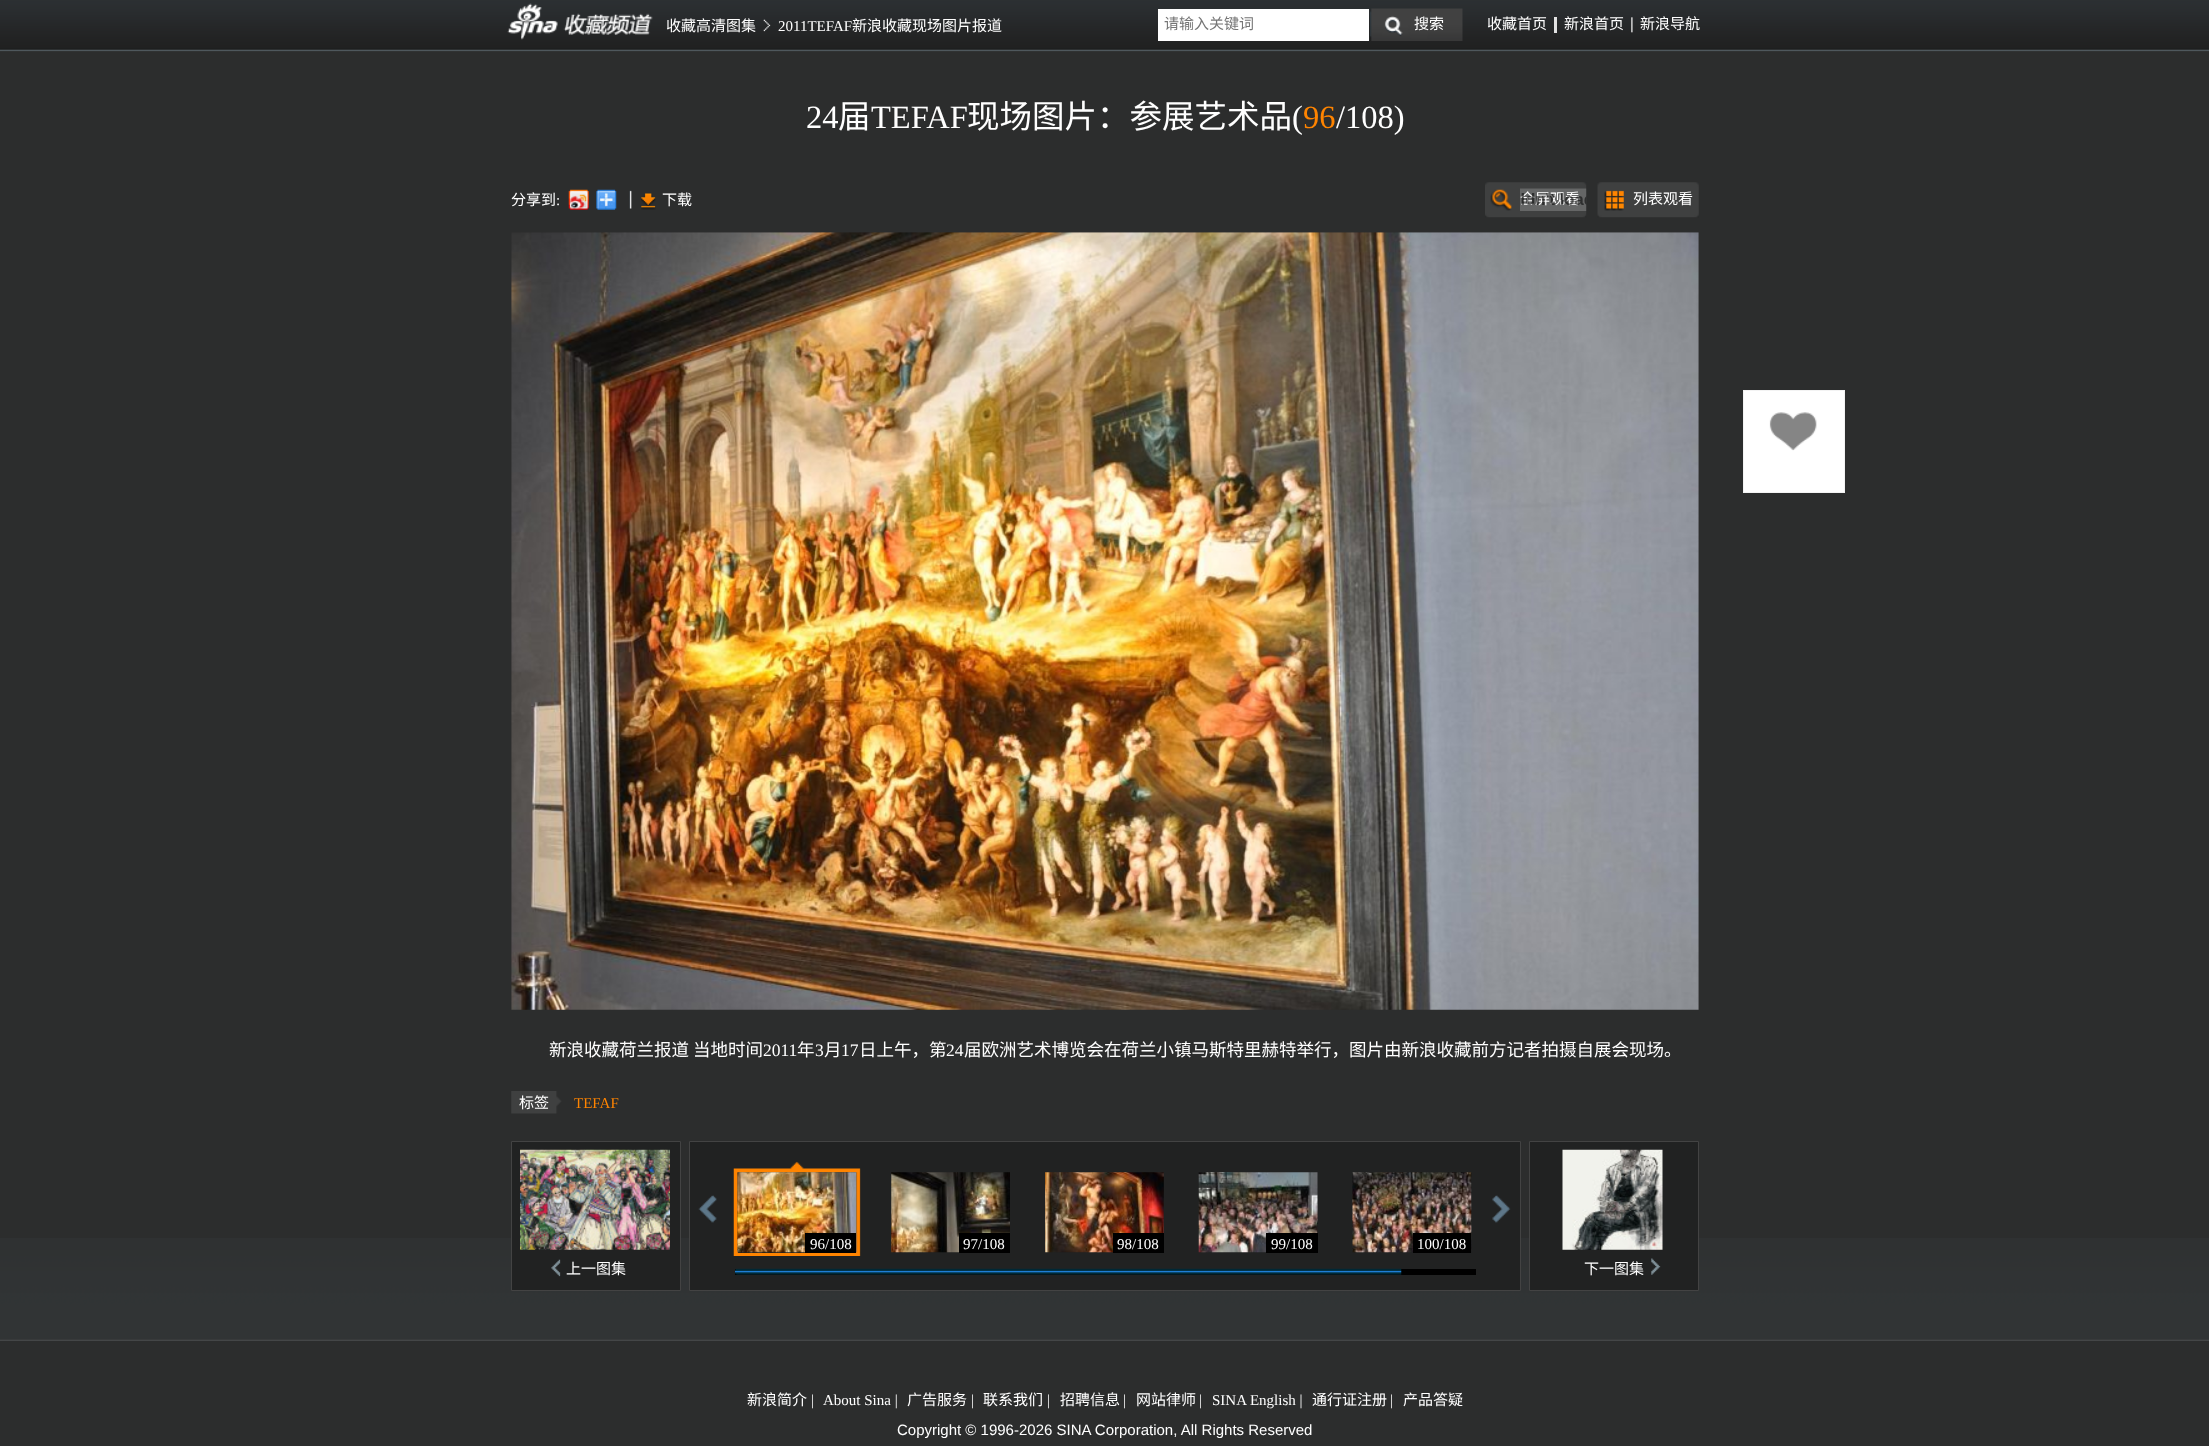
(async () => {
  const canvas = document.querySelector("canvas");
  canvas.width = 2209;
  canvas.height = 1446;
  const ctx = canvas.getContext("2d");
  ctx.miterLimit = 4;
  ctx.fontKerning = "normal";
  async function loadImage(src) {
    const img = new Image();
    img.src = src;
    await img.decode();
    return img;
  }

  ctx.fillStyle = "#2c2d2d";
  ctx.fillRect(0, 0, 2209, 1446);
  ctx.drawImage(await loadImage("img/1.png"), 0, 0, 2209, 52);
  ctx.drawImage(await loadImage("img/2.png"), 507, 3, 51, 37);
  ctx.drawImage(await loadImage("img/3.png"), 563, 13, 90, 22);
  ctx.drawImage(await loadImage("img/4.png"), 763, 19, 8, 13);
  ctx.fillStyle = "#ffffff";
  ctx.fillRect(1158, 9, 211, 32);
  ctx.drawImage(await loadImage("img/5.png"), 1370, 8, 93, 33);
  ctx.fillStyle = "rgba(255, 255, 255, 0.87)";
  ctx.fillRect(1554, 17, 3, 16);
  ctx.drawImage(await loadImage("img/6.png"), 1631, 17, 2, 16);
  ctx.drawImage(await loadImage("img/7.png"), 568, 189, 21, 21);
  ctx.drawImage(await loadImage("img/8.png"), 596, 189, 21, 21);
  ctx.drawImage(await loadImage("img/9.png"), 629, 190, 3, 19);
  ctx.drawImage(await loadImage("img/10.png"), 641, 193, 15, 17);
  ctx.drawImage(await loadImage("img/11.png"), 1485, 182, 102, 36);
  ctx.drawImage(await loadImage("img/12.png"), 1490, 189, 22, 22);
  ctx.drawImage(await loadImage("img/14.png"), 1597, 182, 102, 36);
  ctx.drawImage(await loadImage("img/15.png"), 1604, 190, 20, 21);
  ctx.drawImage(await loadImage("img/16.png"), 511, 232, 1188, 778);
  ctx.drawImage(await loadImage("img/17.png"), 511, 1091, 51, 23);
  ctx.drawImage(await loadImage("img/18.png"), 0, 1238, 2209, 103);
  ctx.fillStyle = "#212222";
  ctx.beginPath();
  ctx.rect(689.5, 1141.5, 831, 149);
  ctx.fill();
  ctx.strokeStyle = "#434343";
  ctx.stroke();
  ctx.drawImage(await loadImage("img/19.png"), 698, 1195, 19, 28);
  ctx.drawImage(await loadImage("img/20.png"), 1492, 1195, 19, 28);
  ctx.drawImage(await loadImage("img/21.png"), 733, 1161, 128, 95);
  ctx.fillRect(738, 1252, 67, 1);
  ctx.drawImage(await loadImage("img/22.png"), 737, 1172, 120, 81);
  ctx.fillStyle = "#000000";
  ctx.fillRect(805, 1233, 51, 20);
  ctx.drawImage(await loadImage("img/23.png"), 891, 1172, 119, 81);
  ctx.fillRect(959, 1233, 51, 20);
  ctx.drawImage(await loadImage("img/24.png"), 1045, 1172, 119, 81);
  ctx.fillRect(1113, 1233, 51, 20);
  ctx.drawImage(await loadImage("img/25.png"), 1198, 1172, 120, 81);
  ctx.fillRect(1266, 1233, 52, 20);
  ctx.drawImage(await loadImage("img/26.png"), 1352, 1172, 120, 81);
  ctx.fillRect(1413, 1233, 58, 20);
  ctx.fillRect(735, 1269, 741, 6);
  ctx.drawImage(await loadImage("img/27.png"), 735, 1268, 667, 7);
  ctx.fillStyle = "#212222";
  ctx.beginPath();
  ctx.rect(511.5, 1141.5, 169, 149);
  ctx.fill();
  ctx.stroke();
  ctx.drawImage(await loadImage("img/28.png"), 520, 1149, 150, 101);
  ctx.drawImage(await loadImage("img/29.png"), 551, 1259, 10, 18);
  ctx.beginPath();
  ctx.rect(1529.5, 1141.5, 169, 149);
  ctx.fill();
  ctx.stroke();
  ctx.drawImage(await loadImage("img/30.png"), 1562, 1149, 101, 101);
  ctx.drawImage(await loadImage("img/31.png"), 1651, 1258, 10, 17);
  ctx.fillStyle = "#ffffff";
  ctx.fillRect(1744, 391, 100, 101);
  ctx.drawImage(await loadImage("img/32.png"), 1769, 412, 48, 39);
  ctx.strokeStyle = "#f3f3f3";
  ctx.strokeRect(1743.5, 390.5, 101, 102);
  ctx.font = "15px Noto Sans CJK SC";
  ctx.fillText("收藏高清图集", 666, 31);
  ctx.font = "15px Liberation Serif";
  ctx.fillText("2011TEFAF", 778, 31);
  ctx.font = "15px Noto Sans CJK SC";
  ctx.fillText("新浪收藏现场图片报道", 852, 31);
  ctx.fillStyle = "#757575";
  ctx.fillText("请输入关键词", 1164, 29);
  ctx.fillStyle = "#ffffff";
  for (const [text, x, y] of [
    ["搜索", 1414, 29],
    ["收藏首页", 1487, 29],
    ["新浪首页", 1564, 29],
    ["新浪导航", 1640, 29],
  ]) {
    ctx.fillText(text, x, y);
  }
  ctx.font = "32.5px Liberation Serif";
  ctx.fillText("24", 806, 128);
  ctx.font = "32.5px Noto Sans CJK SC";
  ctx.fillText("届", 838, 128);
  ctx.font = "32.5px Liberation Serif";
  ctx.fillText("TEFAF", 871, 128);
  ctx.font = "32.5px Noto Sans CJK SC";
  ctx.fillText("现场图片：参展艺术品", 967, 128);
  ctx.font = "32.5px Liberation Serif";
  ctx.fillText("(", 1292, 128);
  ctx.fillStyle = "#ff8400";
  ctx.fillText("96", 1303, 128);
  ctx.fillStyle = "#ffffff";
  ctx.fillText("/108)", 1336, 128);
  ctx.font = "15px Noto Sans CJK SC";
  ctx.fillText("分享到", 511, 205);
  ctx.font = "15px Liberation Serif";
  ctx.fillText(":", 556, 205);
  ctx.font = "15px Noto Sans CJK SC";
  ctx.fillText("下载", 662, 205);
  ctx.fillText("全屏观看", 1520, 204);
  ctx.drawImage(await loadImage("img/13.png"), 1520, 188, 67, 23);
  ctx.fillText("列表观看", 1633, 204);
  ctx.font = "17.5px Noto Sans CJK SC";
  ctx.fillText("新浪收藏荷兰报道 当地时间", 549, 1056);
  ctx.font = "17.5px Liberation Serif";
  ctx.fillText("2011", 763, 1056);
  ctx.font = "17.5px Noto Sans CJK SC";
  ctx.fillText("年", 797, 1056);
  ctx.font = "17.5px Liberation Serif";
  ctx.fillText("3", 815, 1056);
  ctx.font = "17.5px Noto Sans CJK SC";
  ctx.fillText("月", 824, 1056);
  ctx.font = "17.5px Liberation Serif";
  ctx.fillText("17", 841, 1056);
  ctx.font = "17.5px Noto Sans CJK SC";
  ctx.fillText("日上午，第", 859, 1056);
  ctx.font = "17.5px Liberation Serif";
  ctx.fillText("24", 946, 1056);
  ctx.font = "17.5px Noto Sans CJK SC";
  ctx.fillText("届欧洲艺术博览会在荷兰小镇马斯特里赫特举行，图片由新浪收藏前方记者拍摄自展会现场。", 964, 1056);
  ctx.font = "15px Noto Sans CJK SC";
  ctx.fillText("标签", 519, 1108);
  ctx.font = "15px Liberation Serif";
  ctx.fillStyle = "#ff8400";
  ctx.fillText("TEFAF", 574, 1108);
  ctx.fillStyle = "#ffffff";
  for (const [text, x, y] of [
    ["96/108", 810, 1249],
    ["97/108", 963, 1249],
    ["98/108", 1117, 1249],
    ["99/108", 1271, 1249],
    ["100/108", 1417, 1249],
  ]) {
    ctx.fillText(text, x, y);
  }
  ctx.font = "15px Noto Sans CJK SC";
  for (const [text, x, y] of [
    ["上一图集", 566, 1274],
    ["下一图集", 1584, 1274],
    ["新浪简介", 747, 1405],
  ]) {
    ctx.fillText(text, x, y);
  }
  ctx.font = "15px Liberation Serif";
  ctx.fillText("|", 811, 1405);
  ctx.fillText("About Sina |", 823, 1405);
  ctx.font = "15px Noto Sans CJK SC";
  ctx.fillText("广告服务", 907, 1405);
  ctx.font = "15px Liberation Serif";
  ctx.fillText("|", 971, 1405);
  ctx.font = "15px Noto Sans CJK SC";
  ctx.fillText("联系我们", 983, 1405);
  ctx.font = "15px Liberation Serif";
  ctx.fillText("|", 1047, 1405);
  ctx.font = "15px Noto Sans CJK SC";
  ctx.fillText("招聘信息", 1060, 1405);
  ctx.font = "15px Liberation Serif";
  ctx.fillText("|", 1123, 1405);
  ctx.font = "15px Noto Sans CJK SC";
  ctx.fillText("网站律师", 1136, 1405);
  ctx.font = "15px Liberation Serif";
  ctx.fillText("|", 1199, 1405);
  ctx.fillText("SINA English |", 1212, 1405);
  ctx.font = "15px Noto Sans CJK SC";
  ctx.fillText("通行证注册", 1312, 1405);
  ctx.font = "15px Liberation Serif";
  ctx.fillText("|", 1390, 1405);
  ctx.font = "15px Noto Sans CJK SC";
  ctx.fillText("产品答疑", 1403, 1405);
  ctx.font = "15px Liberation Sans";
  ctx.fillText("Copyright © 1996-2026 SINA Corporation, All Rights Reserved", 897, 1435);
})();
